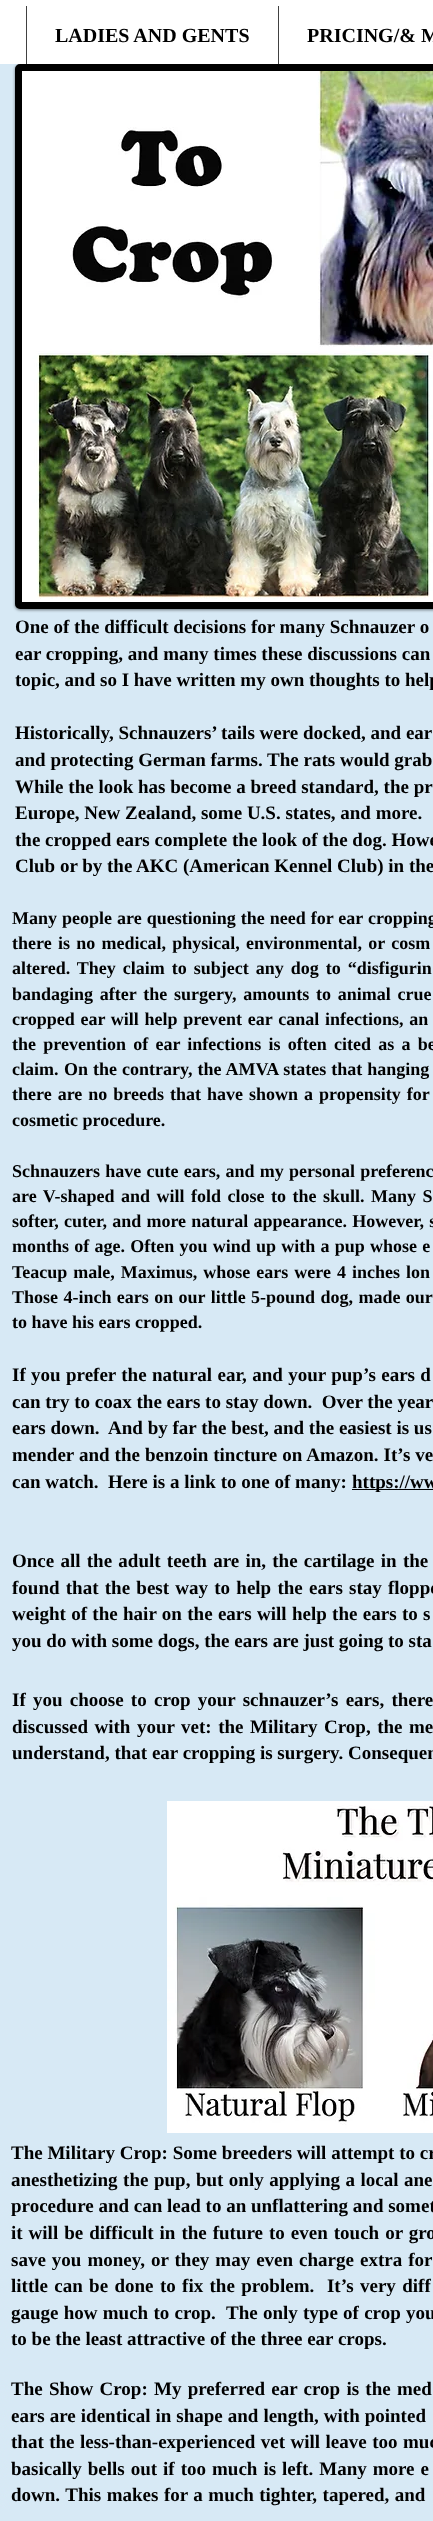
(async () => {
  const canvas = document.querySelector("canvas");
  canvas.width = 433;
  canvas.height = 2521;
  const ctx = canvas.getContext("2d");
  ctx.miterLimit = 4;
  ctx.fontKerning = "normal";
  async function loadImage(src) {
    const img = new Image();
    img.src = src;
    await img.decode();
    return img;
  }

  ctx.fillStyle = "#d7e9f5";
  ctx.fillRect(0, 0, 433, 2521);
  ctx.fillStyle = "rgba(0, 0, 0, 0.5)";
  ctx.filter = "blur(1.5px)";
  ctx.beginPath();
  ctx.roundRect(15, 65, 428, 545, 5);
  ctx.fill();
  ctx.filter = "none";
  for (const [x, y, w, h, color] of [
    [0, 0, 433, 64, "#ffffff"],
    [26, 6, 1, 58, "#414141"],
    [278, 6, 1, 58, "#414141"],
  ]) {
    ctx.fillStyle = color;
    ctx.fillRect(x, y, w, h);
  }
  ctx.beginPath();
  ctx.roundRect(18.5, 67.5, 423, 538, 1.5);
  ctx.strokeStyle = "#000000";
  ctx.lineWidth = 7;
  ctx.stroke();
  ctx.drawImage(await loadImage("img/1.png"), 22, 71, 411, 531);
  ctx.fillStyle = "#000000";
  ctx.fillRect(352, 1489, 81, 1);
  ctx.drawImage(await loadImage("img/2.png"), 167, 1801, 266, 332);
  ctx.font = "bold 20px Liberation Serif";
  ctx.fillText("LADIES AND GENTS", 55, 42);
  ctx.fillText("PRICING/& M", 307, 42);
  ctx.font = "bold 19px Liberation Serif";
  for (const [text, x, y] of [
    ["One of the difficult decisions for many Schnauzer o", 15, 633],
    ["ear cropping, and many times these discussions can", 15, 660],
    ["topic, and so I have written my own thoughts to help", 15, 686],
    ["Historically, Schnauzers’ tails were docked, and ear", 15, 739],
    ["and protecting German farms. The rats would grab", 15, 766],
    ["While the look has become a breed standard, the pr", 15, 793],
    ["Europe, New Zealand, some U.S. states, and more.", 15, 819],
    ["the cropped ears complete the look of the dog. Howe", 15, 846],
    ["Club or by the AKC (American Kennel Club) in the", 15, 872],
  ]) {
    ctx.fillText(text, x, y);
  }
  ctx.wordSpacing = "0.5px";
  ctx.font = "bold 18px Liberation Serif";
  ctx.fillText("Many people are questioning the need for ear cropping", 12, 924);
  ctx.wordSpacing = "1.75px";
  ctx.fillText("there is no medical, physical, environmental, or cosm", 12, 949);
  ctx.wordSpacing = "2.5px";
  ctx.fillText("altered. They claim to subject any dog to “disfigurin", 12, 974);
  ctx.wordSpacing = "2.25px";
  ctx.fillText("bandaging after the surgery, amounts to animal crue", 12, 1000);
  ctx.wordSpacing = "1.25px";
  ctx.fillText("cropped ear will help prevent ear canal infections, an", 12, 1025);
  ctx.wordSpacing = "2.75px";
  ctx.fillText("the prevention of ear infections is often cited as a be", 12, 1050);
  ctx.wordSpacing = "0px";
  ctx.fillText("claim.", 12, 1075);
  ctx.wordSpacing = "0.5px";
  ctx.fillText("On the contrary, the AMVA states that hanging", 64, 1075);
  ctx.wordSpacing = "1.5px";
  ctx.fillText("there are no breeds that have shown a propensity for", 12, 1100);
  ctx.wordSpacing = "0px";
  ctx.fillText("cosmetic procedure.", 12, 1126);
  ctx.wordSpacing = "0.75px";
  ctx.fillText("Schnauzers have cute ears, and my personal preferenc", 12, 1177);
  ctx.wordSpacing = "2px";
  ctx.fillText("are V-shaped and will fold close to the skull. Many S", 12, 1202);
  ctx.wordSpacing = "0.75px";
  ctx.fillText("softer, cuter, and more natural appearance. However, s", 12, 1227);
  ctx.fillText("months of age. Often you wind up with a pup whose e", 12, 1252);
  ctx.wordSpacing = "1.5px";
  ctx.fillText("Teacup male, Maximus, whose ears were 4 inches lon", 12, 1278);
  ctx.wordSpacing = "0.9px";
  ctx.fillText("Those 4-inch ears on our little 5-pound dog, made our", 12, 1303);
  ctx.wordSpacing = "0px";
  ctx.fillText("to have his ears cropped.", 12, 1328);
  ctx.wordSpacing = "0.6px";
  ctx.font = "bold 19px Liberation Serif";
  ctx.fillText("If you prefer the natural ear, and your pup’s ears d", 12, 1381);
  ctx.wordSpacing = "0px";
  ctx.fillText("can try to coax the ears to stay down.  Over the year", 12, 1408);
  ctx.fillText("ears down.  And by far the best, and the easiest is us", 12, 1434);
  ctx.wordSpacing = "0.25px";
  ctx.fillText("mender and the benzoin tincture on Amazon. It’s ve", 12, 1461);
  ctx.wordSpacing = "0px";
  ctx.fillText("can watch.  Here is a link to one of many:", 12, 1488);
  ctx.fillText("https://ww", 352, 1488);
  ctx.wordSpacing = "1.5px";
  ctx.fillText("Once all the adult teeth are in, the cartilage in the", 12, 1567);
  ctx.fillText("found that the best way to help the ears stay floppe", 12, 1594);
  ctx.wordSpacing = "0.6px";
  ctx.fillText("weight of the hair on the ears will help the ears to s", 12, 1620);
  ctx.wordSpacing = "0px";
  ctx.fillText("you do with some dogs, the ears are just going to sta", 12, 1647);
  ctx.wordSpacing = "2.5px";
  ctx.fillText("If you choose to crop your schnauzer’s ears, there", 12, 1706);
  ctx.wordSpacing = "1.75px";
  ctx.fillText("discussed with your vet: the Military Crop, the me", 12, 1733);
  ctx.wordSpacing = "0px";
  ctx.fillText("understand, that ear cropping is surgery. Consequen", 12, 1759);
  ctx.fillText("The Military Crop: Some breeders will attempt to cr", 11, 2159);
  ctx.wordSpacing = "0.75px";
  ctx.fillText("anesthetizing the pup, but only applying a local ane", 11, 2186);
  ctx.wordSpacing = "0px";
  ctx.fillText("procedure and can lead to an unflattering and somet", 11, 2212);
  ctx.wordSpacing = "1.25px";
  ctx.fillText("it will be difficult in the future to even touch or gro", 11, 2239);
  ctx.fillText("save you money, or they may even charge extra for", 11, 2266);
  ctx.wordSpacing = "1.6px";
  ctx.fillText("little can be done to fix the problem.  It’s very diff", 11, 2292);
  ctx.wordSpacing = "0.5px";
  ctx.fillText("gauge how much to crop.  The only type of crop you", 11, 2319);
  ctx.wordSpacing = "0px";
  ctx.fillText("to be the least attractive of the three ear crops.", 11, 2345);
  ctx.wordSpacing = "1.5px";
  ctx.fillText("The Show Crop: My preferred ear crop is the med", 11, 2395);
  ctx.wordSpacing = "0.25px";
  ctx.fillText("ears are identical in shape and length, with pointed", 11, 2422);
  ctx.wordSpacing = "0.75px";
  ctx.fillText("that the less-than-experienced vet will leave too muc", 11, 2448);
  ctx.wordSpacing = "1.25px";
  ctx.fillText("basically bells out if too much is left. Many more e", 11, 2475);
  ctx.wordSpacing = "0.75px";
  ctx.fillText("down. This makes for a much tighter, tapered, and", 11, 2501);
})();
